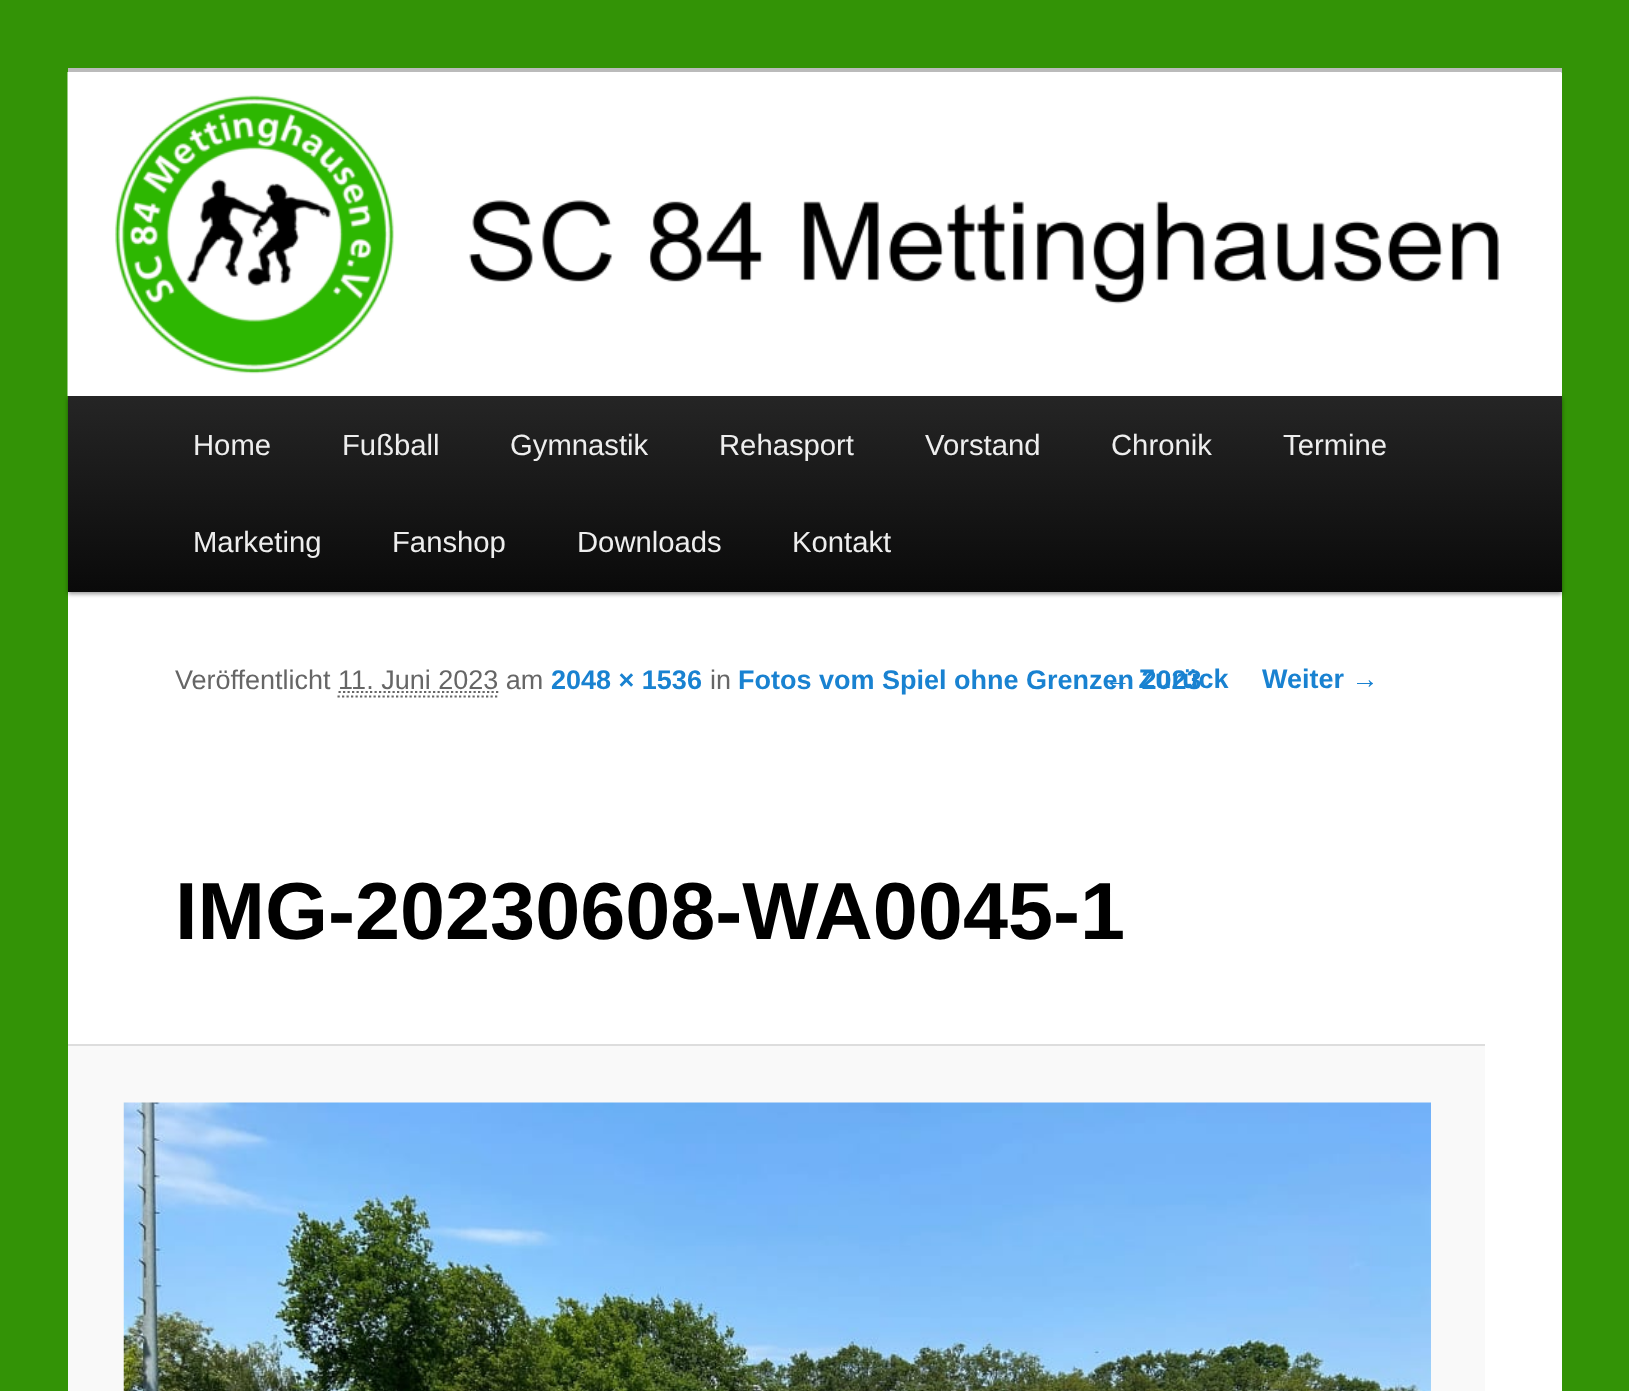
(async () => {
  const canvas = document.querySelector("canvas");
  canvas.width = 1629;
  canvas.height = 1391;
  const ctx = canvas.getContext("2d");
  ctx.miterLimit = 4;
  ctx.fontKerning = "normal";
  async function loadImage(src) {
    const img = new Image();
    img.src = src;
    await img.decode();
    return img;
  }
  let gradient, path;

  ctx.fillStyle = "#339306";
  ctx.fillRect(0, 0, 1629, 1391);
  ctx.fillStyle = "#ffffff";
  ctx.fillRect(68, 73, 1494, 1318);
  ctx.fillStyle = "#bbbbbb";
  ctx.fillRect(68, 68, 1494, 5);
  ctx.fillStyle = "rgba(0, 0, 0, 0.4)";
  ctx.filter = "blur(2px)";
  ctx.beginPath();
  ctx.rect(68, 398, 1494, 196);
  ctx.fill();
  ctx.filter = "none";
  ctx.drawImage(await loadImage("img/1.png"), 67, 72, 1495, 324);
  gradient = ctx.createLinearGradient(815, 396, 815, 592);
  gradient.addColorStop(0, "#252525");
  gradient.addColorStop(1, "#0a0a0a");
  ctx.fillStyle = gradient;
  ctx.fillRect(68, 396, 1494, 196);
  path = new Path2D("M338.5 692H498.5");
  ctx.strokeStyle = "#666666";
  ctx.lineWidth = 2.2;
  ctx.setLineDash([2.25, 2.25]);
  ctx.stroke(path);
  path = new Path2D("M337.5 696.5H499.5");
  ctx.stroke(path);
  ctx.fillStyle = "#f9f9f9";
  ctx.fillRect(68, 1046, 1417, 345);
  ctx.fillStyle = "#dddddd";
  ctx.fillRect(68, 1044, 1417, 2);
  ctx.drawImage(await loadImage("img/2.png"), 123, 1102, 1308, 289);
  ctx.font = "29.25px Liberation Sans";
  ctx.fillStyle = "#eeeeee";
  for (const [text, x, y] of [
    ["Home", 193, 455],
    ["Fußball", 342, 455],
    ["Gymnastik", 510, 455],
    ["Rehasport", 719, 455],
    ["Vorstand", 925, 455],
    ["Chronik", 1111, 455],
    ["Termine", 1283, 455],
    ["Marketing", 193, 552],
    ["Fanshop", 392, 552],
    ["Downloads", 577, 552],
    ["Kontakt", 792, 552],
  ]) {
    ctx.fillText(text, x, y);
  }
  ctx.font = "27px Liberation Sans";
  ctx.fillStyle = "#666666";
  ctx.fillText("Veröffentlicht 11. Juni 2023 am", 175, 689);
  ctx.font = "bold 27px Liberation Sans";
  ctx.fillStyle = "#1982d1";
  ctx.fillText("2048 × 1536", 551, 689);
  ctx.font = "27px Liberation Sans";
  ctx.fillStyle = "#666666";
  ctx.fillText("in", 710, 689);
  ctx.font = "bold 27px Liberation Sans";
  ctx.fillStyle = "#1982d1";
  ctx.fillText("Fotos vom Spiel ohne Grenzen 2023", 738, 689);
  ctx.font = "bold 81px Liberation Sans";
  ctx.fillStyle = "#000000";
  ctx.fillText("IMG-20230608-WA0045-1", 175, 939);
  ctx.font = "bold 27px Liberation Sans";
  ctx.fillStyle = "#1982d1";
  ctx.fillText("← Zurück", 1104, 688);
  ctx.fillText("Weiter →", 1262, 688);
})();
